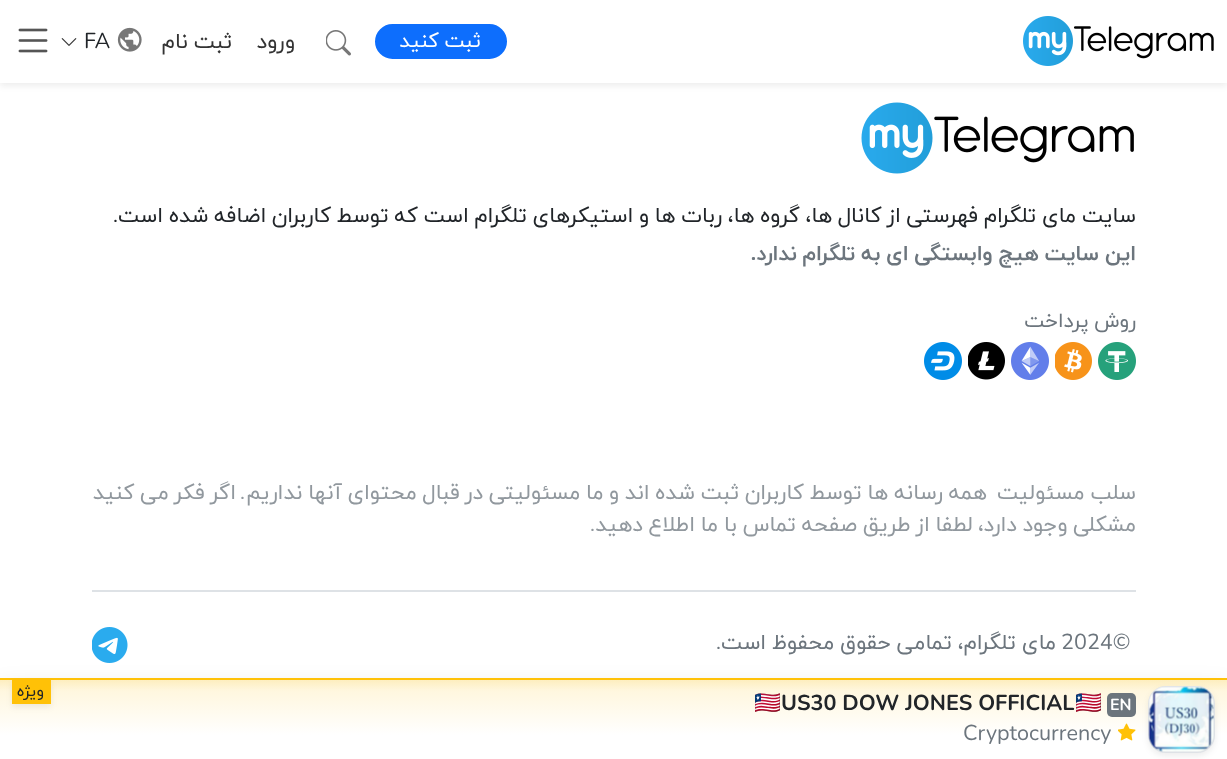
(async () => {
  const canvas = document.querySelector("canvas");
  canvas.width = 1227;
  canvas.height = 759;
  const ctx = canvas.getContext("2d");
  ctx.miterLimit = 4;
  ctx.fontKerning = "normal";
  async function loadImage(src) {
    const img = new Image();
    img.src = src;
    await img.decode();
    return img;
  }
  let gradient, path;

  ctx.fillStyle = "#ffffff";
  ctx.fillRect(0, 0, 1227, 759);
  ctx.save();
  path = new Path2D("M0 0H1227V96H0ZM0 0H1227V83H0Z");
  ctx.clip(path, "evenodd");
  ctx.fillStyle = "rgba(0, 0, 0, 0.07)";
  ctx.filter = "blur(3px)";
  ctx.beginPath();
  ctx.rect(0, 3, 1227, 83);
  ctx.fill();
  ctx.filter = "none";
  ctx.restore();
  ctx.fillStyle = "rgba(255, 255, 255, 0.8)";
  ctx.fillRect(0, 82, 1227, 1);
  ctx.drawImage(await loadImage("img/1.png"), 1023, 16, 191, 50);
  ctx.fillStyle = "#0d6efd";
  ctx.beginPath();
  ctx.roundRect(376, 25, 130, 33, 16.5);
  ctx.fill();
  ctx.strokeStyle = "#0d6efd";
  ctx.lineWidth = 2;
  ctx.stroke();
  ctx.drawImage(await loadImage("img/2.png"), 326, 30, 25, 26);
  ctx.drawImage(await loadImage("img/3.png"), 117, 27, 25, 25);
  ctx.drawImage(await loadImage("img/4.png"), 61, 38, 16, 8);
  ctx.drawImage(await loadImage("img/5.png"), 18, 28, 30, 25);
  ctx.drawImage(await loadImage("img/6.png"), 861, 102, 273, 72);
  ctx.drawImage(await loadImage("img/7.png"), 1098, 342, 38, 38);
  ctx.drawImage(await loadImage("img/8.png"), 1055, 342, 37, 38);
  ctx.drawImage(await loadImage("img/9.png"), 1011, 342, 38, 38);
  ctx.drawImage(await loadImage("img/10.png"), 968, 342, 37, 38);
  ctx.drawImage(await loadImage("img/11.png"), 924, 342, 38, 38);
  ctx.fillStyle = "#dee2e6";
  ctx.fillRect(92, 590, 1044, 2);
  ctx.drawImage(await loadImage("img/12.png"), 92, 627, 36, 36);
  ctx.fillStyle = "rgba(0, 0, 0, 0.15)";
  ctx.filter = "blur(12px)";
  ctx.beginPath();
  ctx.rect(0, 690, 1227, 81);
  ctx.fill();
  ctx.filter = "none";
  gradient = ctx.createLinearGradient(614, 679, 614, 759);
  gradient.addColorStop(0, "#fdedbc");
  gradient.addColorStop(0.15, "#fff7df");
  gradient.addColorStop(0.7, "#ffffff");
  ctx.fillStyle = gradient;
  ctx.fillRect(0, 680, 1227, 79);
  ctx.fillStyle = "#ffc107";
  ctx.fillRect(0, 678, 1227, 2);
  ctx.fillStyle = "rgba(0, 0, 0, 0.07)";
  ctx.filter = "blur(3px)";
  ctx.beginPath();
  ctx.roundRect(1148, 689, 67, 67, 18);
  ctx.fill();
  ctx.filter = "none";
  ctx.beginPath();
  ctx.roundRect(1149, 687, 65, 65, 17);
  ctx.strokeStyle = "#dee2e6";
  ctx.stroke();
  ctx.drawImage(await loadImage("img/13.png"), 1148, 686, 66, 66);
  ctx.fillStyle = "#6c757d";
  ctx.beginPath();
  ctx.roundRect(1107, 693, 29, 24, 5);
  ctx.fill();
  ctx.drawImage(await loadImage("img/14.png"), 1118, 723, 18, 18);
  ctx.fillStyle = "rgba(0, 0, 0, 0.07)";
  ctx.filter = "blur(3px)";
  ctx.beginPath();
  ctx.rect(12, 683, 39, 24);
  ctx.fill();
  ctx.filter = "none";
  ctx.fillStyle = "#ffc107";
  ctx.fillRect(12, 680, 39, 24);
  ctx.wordSpacing = "-1px";
  ctx.direction = "rtl";
  ctx.font = "20.5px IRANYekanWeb";
  ctx.fillStyle = "#ffffff";
  ctx.fillText("ثبت کنید", 481, 47);
  ctx.wordSpacing = "0px";
  ctx.font = "21.6px IRANYekanWeb";
  ctx.fillStyle = "#333333";
  ctx.fillText("ورود", 295, 48);
  ctx.wordSpacing = "-1.25px";
  ctx.fillText("ثبت نام", 232, 48);
  ctx.wordSpacing = "0px";
  ctx.direction = "ltr";
  ctx.font = "21.6px Nunito";
  ctx.fillStyle = "#212529";
  ctx.fillText("FA", 84, 48);
  ctx.wordSpacing = "-1.25px";
  ctx.direction = "rtl";
  ctx.font = "21.6px IRANYekanWeb";
  ctx.fillText("سایت مای تلگرام فهرستی از کانال ها، گروه ها، ربات ها و استیکرهای تلگرام است که توسط کاربران اضافه شده است", 1136, 222);
  ctx.wordSpacing = "0px";
  ctx.font = "21.6px Nunito";
  ctx.fillText(".", 118, 222);
  ctx.wordSpacing = "-1px";
  ctx.font = "bold 21.6px IRANYekanWeb";
  ctx.fillStyle = "#6c757d";
  ctx.fillText("این سایت هیچ وابستگی ای به تلگرام ندارد", 1136, 260);
  ctx.wordSpacing = "0px";
  ctx.font = "bold 21.6px Nunito";
  ctx.fillText(".", 756, 260);
  ctx.wordSpacing = "-1px";
  ctx.font = "20.5px IRANYekanWeb";
  ctx.fillText("روش پرداخت", 1136, 327);
  ctx.wordSpacing = "-1.2px";
  ctx.font = "21.6px IRANYekanWeb";
  ctx.fillStyle = "#91989e";
  ctx.fillText("سلب مسئولیت", 1136, 499);
  ctx.fillText("همه رسانه ها توسط کاربران ثبت شده اند و ما مسئولیتی در قبال محتوای آنها نداریم", 987, 499);
  ctx.wordSpacing = "0px";
  ctx.font = "21.6px Nunito";
  ctx.fillText(".", 245, 499);
  ctx.wordSpacing = "-1.2px";
  ctx.font = "21.6px IRANYekanWeb";
  ctx.fillText("اگر فکر می کنید", 236, 499);
  ctx.wordSpacing = "-1.25px";
  ctx.fillText("مشکلی وجود دارد، لطفا از طریق صفحه تماس با ما اطلاع دهید", 1136, 531);
  ctx.wordSpacing = "0px";
  ctx.font = "21.6px Nunito";
  ctx.fillText(".", 595, 531);
  ctx.direction = "ltr";
  ctx.fillStyle = "#6c757d";
  ctx.fillText("2024©", 1061, 649);
  ctx.wordSpacing = "-1px";
  ctx.direction = "rtl";
  ctx.font = "21.6px IRANYekanWeb";
  ctx.fillText("مای تلگرام، تمامی حقوق محفوظ است", 1056, 649);
  ctx.wordSpacing = "0px";
  ctx.font = "21.6px Nunito";
  ctx.fillText(".", 721, 649);
  ctx.direction = "ltr";
  ctx.font = "bold 16px Nunito";
  ctx.fillStyle = "#ffffff";
  ctx.fillText("EN", 1110, 710);
  ctx.font = "bold 21.6px Nunito";
  ctx.fillStyle = "#212529";
  ctx.fillText("US30 DOW JONES OFFICIAL", 781, 710);
  ctx.font = "bold 21.6px Noto Color Emoji";
  ctx.fillText("🇱🇷", 1075, 710);
  ctx.fillText("🇱🇷", 754, 710);
  ctx.font = "21.6px Nunito";
  ctx.fillStyle = "#6c757d";
  ctx.fillText("Cryptocurrency", 963, 740);
  ctx.direction = "rtl";
  ctx.font = "16px IRANYekanWeb";
  ctx.fillStyle = "#212529";
  ctx.fillText("ویژه", 44, 696);
})();
